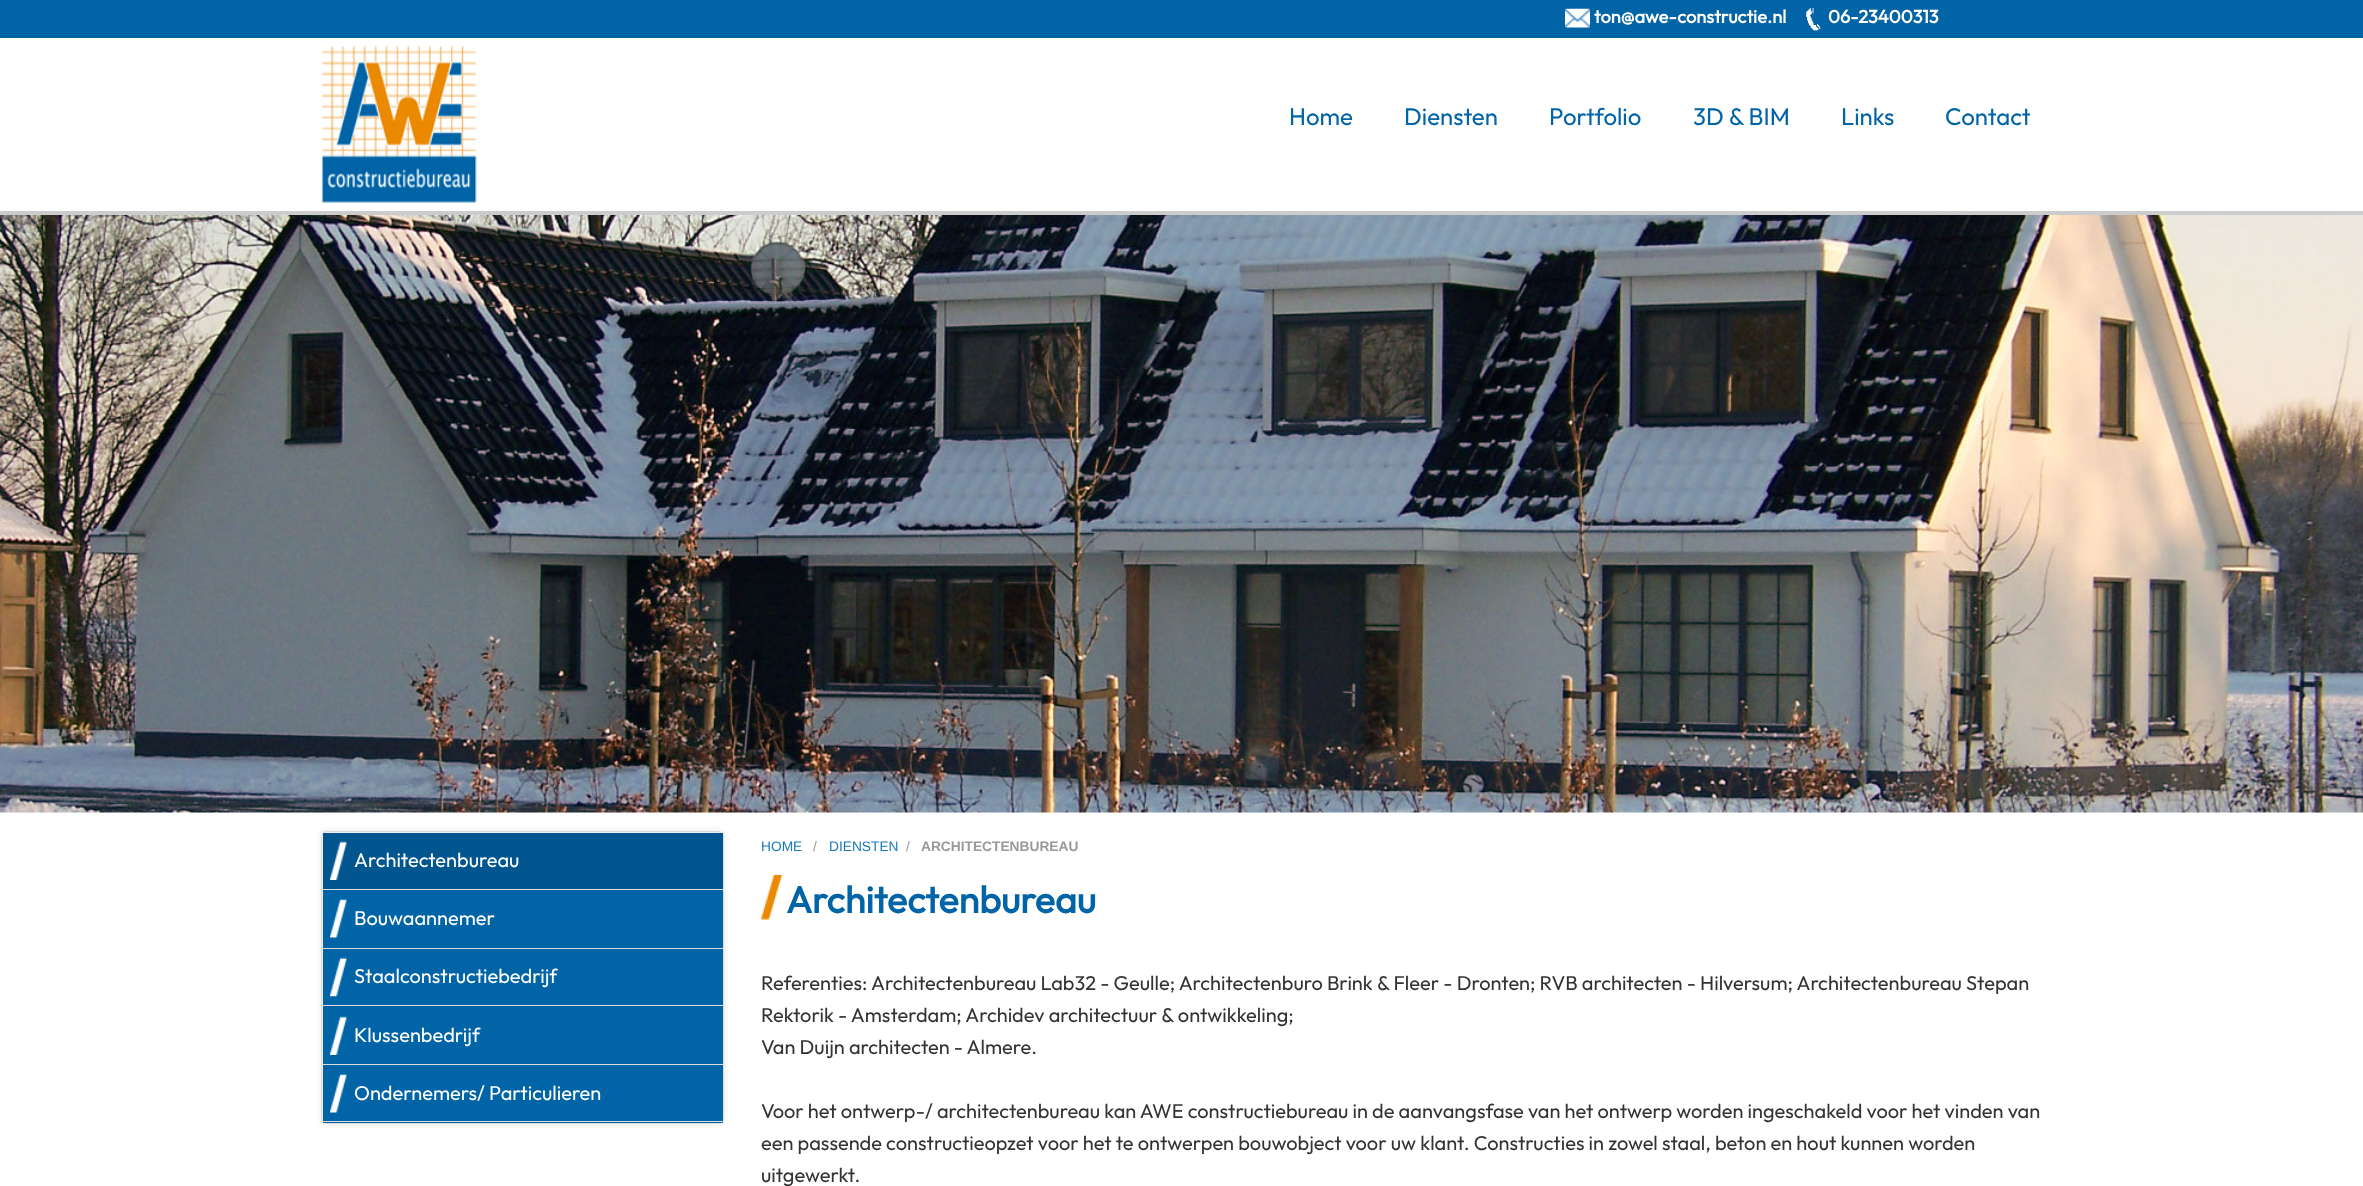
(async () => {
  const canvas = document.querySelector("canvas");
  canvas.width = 2363;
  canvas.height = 1186;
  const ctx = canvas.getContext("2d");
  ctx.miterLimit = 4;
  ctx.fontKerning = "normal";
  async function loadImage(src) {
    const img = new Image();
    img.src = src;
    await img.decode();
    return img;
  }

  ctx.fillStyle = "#ffffff";
  ctx.fillRect(0, 0, 2363, 1186);
  ctx.fillStyle = "#0164a7";
  ctx.fillRect(0, 0, 2363, 38);
  ctx.drawImage(await loadImage("img/1.png"), 1565, 8, 25, 20);
  ctx.drawImage(await loadImage("img/2.png"), 1806, 8, 15, 23);
  ctx.fillStyle = "#cccccc";
  ctx.fillRect(0, 211, 2363, 4);
  ctx.drawImage(await loadImage("img/3.png"), 321, 45, 156, 158);
  ctx.drawImage(await loadImage("img/4.png"), 0, 215, 2363, 598);
  ctx.fillStyle = "rgba(0, 0, 0, 0.1)";
  ctx.filter = "blur(3px)";
  ctx.beginPath();
  ctx.roundRect(321, 831, 403, 293, 6);
  ctx.fill();
  ctx.filter = "none";
  ctx.fillStyle = "#f0f0f0";
  ctx.beginPath();
  ctx.roundRect(321.5, 831.5, 402, 292, 5.5);
  ctx.fill();
  ctx.strokeStyle = "#dcdcdc";
  ctx.stroke();
  ctx.fillStyle = "#01568f";
  ctx.fillRect(323, 833, 400, 56);
  ctx.drawImage(await loadImage("img/5.png"), 330, 841, 17, 39);
  ctx.fillStyle = "#dcdcdc";
  ctx.fillRect(323, 889, 400, 1);
  ctx.fillStyle = "#0164a7";
  ctx.fillRect(323, 890, 400, 58);
  ctx.drawImage(await loadImage("img/6.png"), 330, 898, 17, 40);
  ctx.fillStyle = "#dcdcdc";
  ctx.fillRect(323, 948, 400, 1);
  ctx.fillStyle = "#0164a7";
  ctx.fillRect(323, 949, 400, 56);
  ctx.drawImage(await loadImage("img/7.png"), 330, 957, 17, 40);
  ctx.fillStyle = "#dcdcdc";
  ctx.fillRect(323, 1005, 400, 1);
  ctx.fillStyle = "#0164a7";
  ctx.fillRect(323, 1006, 400, 58);
  ctx.drawImage(await loadImage("img/8.png"), 330, 1016, 17, 39);
  ctx.fillStyle = "#dcdcdc";
  ctx.fillRect(323, 1064, 400, 1);
  ctx.fillStyle = "#0164a7";
  ctx.fillRect(323, 1065, 400, 58);
  ctx.drawImage(await loadImage("img/6.png"), 330, 1073, 17, 40);
  ctx.fillStyle = "#dcdcdc";
  ctx.fillRect(323, 1121, 400, 1);
  ctx.drawImage(await loadImage("img/9.png"), 761, 875, 22, 45);
  ctx.font = "bold 18.25px Outfit";
  ctx.fillStyle = "#ffffff";
  ctx.fillText("ton@awe-constructie.nl", 1594, 23);
  ctx.fillText("06-23400313", 1828, 23);
  ctx.font = "100 24px Outfit";
  ctx.fillStyle = "#0164a7";
  for (const [text, x, y] of [
    ["Home", 1289, 125],
    ["Diensten", 1404, 125],
    ["Portfolio", 1549, 125],
    ["3D & BIM", 1693, 125],
    ["Links", 1841, 125],
    ["Contact", 1945, 125],
  ]) {
    ctx.fillText(text, x, y);
  }
  ctx.font = "100 20px Outfit";
  ctx.fillStyle = "#ffffff";
  for (const [text, x, y] of [
    ["Architectenbureau", 354, 867],
    ["Bouwaannemer", 354, 925],
    ["Staalconstructiebedrijf", 354, 983],
    ["Klussenbedrijf", 354, 1042],
    ["Ondernemers/ Particulieren", 354, 1100],
  ]) {
    ctx.fillText(text, x, y);
  }
  ctx.font = "13.75px Liberation Sans";
  ctx.fillStyle = "#1779ba";
  ctx.fillText("HOME", 761, 851);
  ctx.fillStyle = "#999999";
  ctx.fillText("/", 813, 851);
  ctx.fillStyle = "#1779ba";
  ctx.fillText("DIENSTEN", 829, 851);
  ctx.fillStyle = "#999999";
  ctx.fillText("/", 906, 851);
  ctx.font = "bold 13.75px Liberation Sans";
  ctx.fillText("ARCHITECTENBUREAU", 921, 851);
  ctx.font = "bold 37.5px Outfit";
  ctx.fillStyle = "#0164a7";
  ctx.fillText("Architectenbureau", 786, 913);
  ctx.font = "100 20px Outfit";
  ctx.fillStyle = "#333333";
  for (const [text, x, y] of [
    ["Referenties: Architectenbureau Lab32 - Geulle; Architectenburo Brink & Fleer - Dronten; RVB architecten - Hilversum; Architectenbureau Stepan", 761, 990],
    ["Rektorik - Amsterdam; Archidev architectuur & ontwikkeling;", 761, 1022],
    ["Van Duijn architecten - Almere.", 761, 1054],
    ["Voor het ontwerp-/ architectenbureau kan AWE constructiebureau in de aanvangsfase van het ontwerp worden ingeschakeld voor het vinden van", 761, 1118],
    ["een passende constructieopzet voor het te ontwerpen bouwobject voor uw klant. Constructies in zowel staal, beton en hout kunnen worden", 761, 1150],
    ["uitgewerkt.", 761, 1182],
  ]) {
    ctx.fillText(text, x, y);
  }
})();
